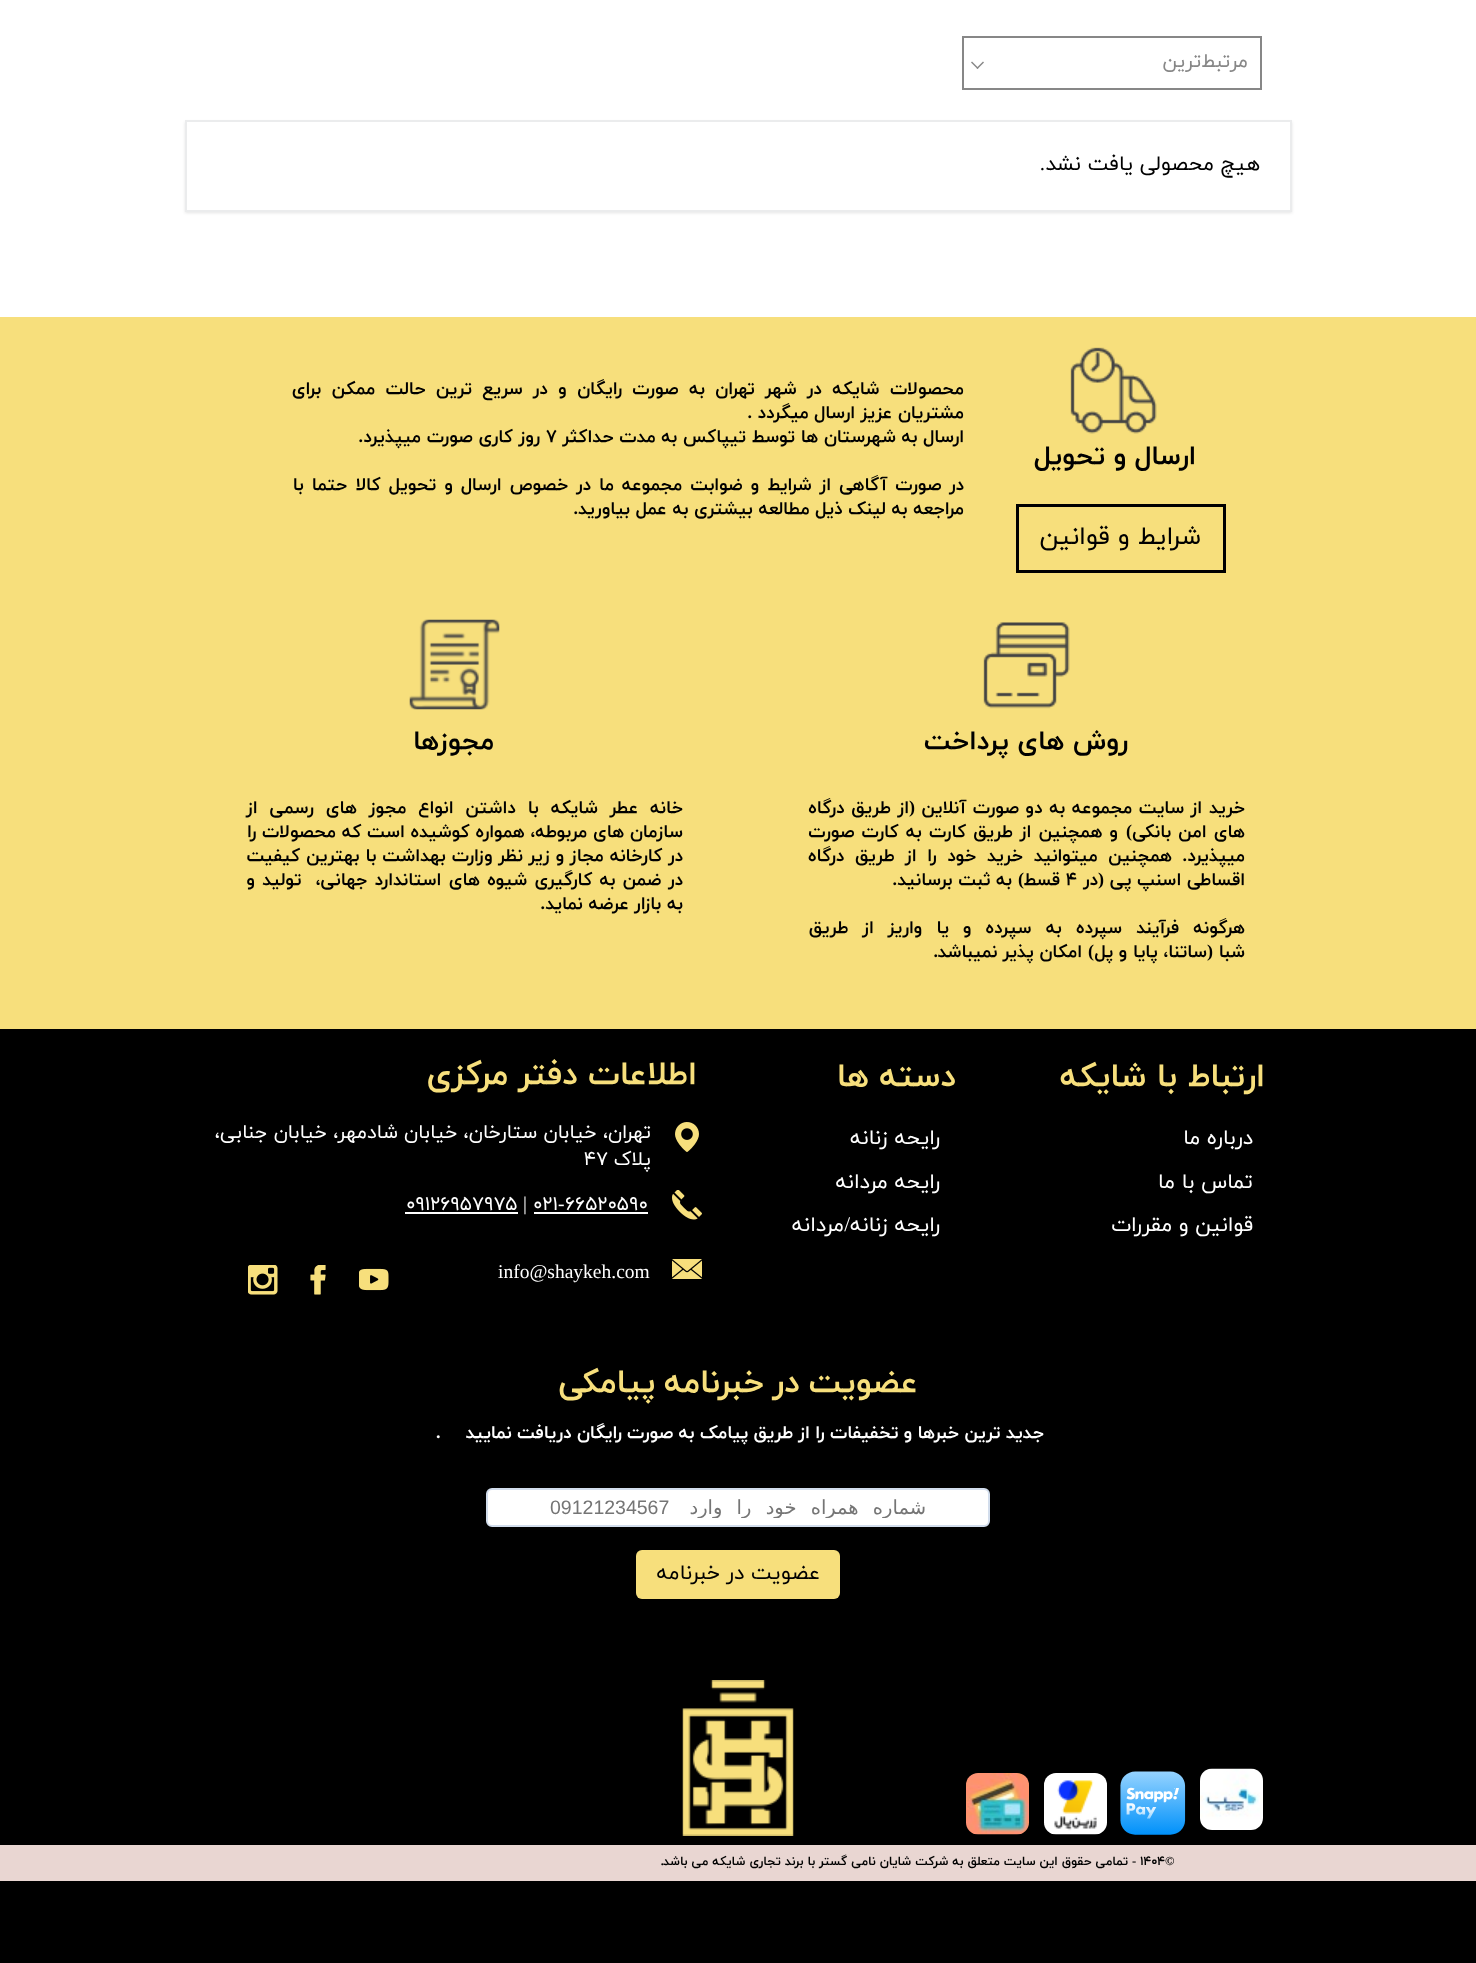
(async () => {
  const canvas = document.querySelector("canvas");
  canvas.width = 1476;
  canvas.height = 1963;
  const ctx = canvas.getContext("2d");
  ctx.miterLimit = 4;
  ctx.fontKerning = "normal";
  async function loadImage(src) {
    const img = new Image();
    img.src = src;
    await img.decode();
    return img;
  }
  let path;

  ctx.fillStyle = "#ffffff";
  ctx.fillRect(0, 0, 1476, 1963);
  ctx.strokeStyle = "#878787";
  ctx.lineWidth = 2;
  ctx.strokeRect(963, 37, 298, 52);
  ctx.fillStyle = "#878787";
  path = new Path2D("M983 61.5L984 62.5L977.5 69L976.5 68Z");
  ctx.fill(path);
  path = new Path2D("M972 61.5L978.5 68L977.5 69L971 62.5Z");
  ctx.fill(path);
  ctx.fillStyle = "rgba(0, 0, 0, 0.1)";
  ctx.filter = "blur(1.5px)";
  ctx.beginPath();
  ctx.rect(185, 122, 1107, 91);
  ctx.fill();
  ctx.filter = "none";
  ctx.fillStyle = "#ffffff";
  ctx.beginPath();
  ctx.rect(186, 121, 1105, 90);
  ctx.fill();
  ctx.strokeStyle = "#ebeced";
  ctx.stroke();
  ctx.fillStyle = "#f7df7c";
  ctx.fillRect(0, 317, 1476, 712);
  ctx.drawImage(await loadImage("img/1.png"), 1070, 347, 87, 87);
  ctx.strokeStyle = "#000000";
  ctx.lineWidth = 3;
  ctx.strokeRect(1017.5, 505.5, 207, 66);
  ctx.drawImage(await loadImage("img/2.png"), 983, 622, 87, 87);
  ctx.drawImage(await loadImage("img/3.png"), 409, 619, 91, 91);
  ctx.fillStyle = "#000000";
  ctx.fillRect(0, 1029, 1476, 934);
  ctx.drawImage(await loadImage("img/4.png"), 675, 1122, 24, 30);
  ctx.drawImage(await loadImage("img/5.png"), 672, 1190, 30, 30);
  ctx.fillStyle = "#ffffff";
  ctx.fillRect(534, 1212, 114, 2);
  ctx.fillRect(405, 1212, 113, 2);
  ctx.drawImage(await loadImage("img/6.png"), 672, 1259, 30, 20);
  ctx.drawImage(await loadImage("img/7.png"), 359, 1268, 30, 23);
  ctx.drawImage(await loadImage("img/8.png"), 310, 1265, 16, 30);
  ctx.drawImage(await loadImage("img/9.png"), 248, 1265, 30, 30);
  ctx.beginPath();
  ctx.roundRect(487, 1489, 502, 37, 5);
  ctx.fill();
  ctx.strokeStyle = "#d2ddec";
  ctx.lineWidth = 2;
  ctx.stroke();
  ctx.fillStyle = "#f7df7c";
  ctx.beginPath();
  ctx.roundRect(636, 1550, 204, 49, 6);
  ctx.fill();
  ctx.drawImage(await loadImage("img/10.png"), 1200, 1768, 63, 62);
  ctx.drawImage(await loadImage("img/11.png"), 1120, 1771, 66, 64);
  ctx.drawImage(await loadImage("img/12.png"), 1044, 1773, 63, 62);
  ctx.drawImage(await loadImage("img/13.png"), 966, 1773, 63, 62);
  ctx.drawImage(await loadImage("img/14.png"), 682, 1680, 112, 156);
  ctx.fillStyle = "#e9d6d2";
  ctx.fillRect(0, 1845, 1476, 36);
  ctx.direction = "rtl";
  ctx.font = "19.5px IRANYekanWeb";
  ctx.fillStyle = "#878787";
  ctx.fillText("مرتبط‌ترین", 1248, 67);
  ctx.font = "21px IRANYekanWeb";
  ctx.fillStyle = "#000000";
  ctx.fillText("هیچ محصولی یافت نشد", 1260, 170);
  ctx.font = "21px Liberation Serif";
  ctx.fillText(".", 1045, 170);
  ctx.wordSpacing = "4.75px";
  ctx.font = "bold 18px IRANYekanWeb";
  ctx.fillText("محصولات شایکه در شهر تهران به صورت رایگان و در سریع ترین حالت ممکن برای", 964, 394);
  ctx.wordSpacing = "0px";
  ctx.fillText("مشتریان عزیز ارسال میگردد", 964, 418);
  ctx.font = "bold 18px Liberation Serif";
  ctx.fillText(".", 752, 418);
  ctx.font = "bold 18px IRANYekanWeb";
  ctx.fillText("ارسال به شهرستان ها توسط تیپاکس به مدت حداکثر", 964, 442);
  ctx.direction = "ltr";
  ctx.fillText("۷", 546, 442);
  ctx.direction = "rtl";
  ctx.fillText("روز کاری صورت میپذیرد", 540, 442);
  ctx.font = "bold 18px Liberation Serif";
  ctx.fillText(".", 363, 442);
  ctx.wordSpacing = "2.4px";
  ctx.font = "bold 18px IRANYekanWeb";
  ctx.fillText("در صورت آگاهی از شرایط و ضوابت مجموعه ما در خصوص ارسال و تحویل کالا حتما با", 964, 490);
  ctx.wordSpacing = "0px";
  ctx.fillText("مراجعه به لینک ذیل مطالعه بیشتری به عمل بیاورید", 964, 514);
  ctx.font = "bold 18px Liberation Serif";
  ctx.fillText(".", 578, 514);
  ctx.font = "bold 27px IRANYekanWeb";
  ctx.fillText("ارسال و تحویل", 1196, 464);
  ctx.font = "25.5px IRANYekanWeb";
  ctx.fillText("شرایط و قوانین", 1201, 544);
  ctx.font = "bold 27px IRANYekanWeb";
  ctx.fillText("روش های پرداخت", 1128, 749);
  ctx.wordSpacing = "1px";
  ctx.font = "bold 18px IRANYekanWeb";
  ctx.fillText("خرید از سایت مجموعه به دو صورت آنلاین", 1245, 813);
  ctx.wordSpacing = "0px";
  ctx.font = "bold 18px Liberation Serif";
  ctx.fillText("(", 915, 813);
  ctx.wordSpacing = "1px";
  ctx.font = "bold 18px IRANYekanWeb";
  ctx.fillText("از طریق درگاه", 909, 813);
  ctx.wordSpacing = "1.5px";
  ctx.fillText("های امن بانکی", 1245, 837);
  ctx.wordSpacing = "0px";
  ctx.font = "bold 18px Liberation Serif";
  ctx.fillText(")", 1132, 837);
  ctx.wordSpacing = "1.5px";
  ctx.font = "bold 18px IRANYekanWeb";
  ctx.fillText("و همچنین از طریق کارت به کارت صورت", 1118, 837);
  ctx.wordSpacing = "0px";
  ctx.fillText("میپذیرد", 1245, 861);
  ctx.font = "bold 18px Liberation Serif";
  ctx.fillText(".", 1187, 861);
  ctx.wordSpacing = "5px";
  ctx.font = "bold 18px IRANYekanWeb";
  ctx.fillText("همچنین میتوانید خرید خود را از طریق درگاه", 1172, 861);
  ctx.wordSpacing = "0px";
  ctx.fillText("اقساطی اسنپ پی", 1245, 885);
  ctx.font = "bold 18px Liberation Serif";
  ctx.fillText("(", 1104, 885);
  ctx.font = "bold 18px IRANYekanWeb";
  ctx.fillText("در", 1098, 885);
  ctx.direction = "ltr";
  ctx.fillText("۴", 1066, 885);
  ctx.direction = "rtl";
  ctx.fillText("قسط", 1060, 885);
  ctx.font = "bold 18px Liberation Serif";
  ctx.fillText(")", 1024, 885);
  ctx.font = "bold 18px IRANYekanWeb";
  ctx.fillText("به ثبت برسانید", 1012, 885);
  ctx.font = "bold 18px Liberation Serif";
  ctx.fillText(".", 897, 885);
  ctx.wordSpacing = "8.5px";
  ctx.font = "bold 18px IRANYekanWeb";
  ctx.fillText("هرگونه فرآیند سپرده به سپرده و یا واریز از طریق", 1245, 933);
  ctx.wordSpacing = "0px";
  ctx.fillText("شبا", 1245, 957);
  ctx.font = "bold 18px Liberation Serif";
  ctx.fillText("(", 1213, 957);
  ctx.font = "bold 18px IRANYekanWeb";
  ctx.fillText("ساتنا، پایا و پل", 1207, 957);
  ctx.font = "bold 18px Liberation Serif";
  ctx.fillText(")", 1094, 957);
  ctx.font = "bold 18px IRANYekanWeb";
  ctx.fillText("امکان پذیر نمیباشد", 1082, 957);
  ctx.font = "bold 18px Liberation Serif";
  ctx.fillText(".", 938, 957);
  ctx.font = "bold 27px IRANYekanWeb";
  ctx.fillText("مجوزها", 494, 749);
  ctx.wordSpacing = "6.25px";
  ctx.font = "bold 18px IRANYekanWeb";
  ctx.fillText("خانه عطر شایکه با داشتن انواع مجوز های رسمی از", 683, 813);
  ctx.wordSpacing = "0px";
  ctx.fillText("سازمان های مربوطه، همواره کوشیده است که محصولات را", 683, 837);
  ctx.wordSpacing = "0.25px";
  ctx.fillText("در کارخانه مجاز و زیر نظر وزارت بهداشت با بهترین کیفیت", 683, 861);
  ctx.wordSpacing = "1.5px";
  ctx.fillText("در ضمن به کارگیری شیوه های استاندارد جهانی،  تولید و", 683, 885);
  ctx.wordSpacing = "0px";
  ctx.fillText("به بازار عرضه نماید", 683, 909);
  ctx.font = "bold 18px Liberation Serif";
  ctx.fillText(".", 545, 909);
  ctx.font = "bold 33px IRANYekanWeb";
  ctx.fillStyle = "#f7df7c";
  ctx.fillText("ارتباط با شایکه", 1265, 1086);
  ctx.font = "21px IRANYekanWeb";
  ctx.fillStyle = "#ffffff";
  for (const [text, x, y] of [
    ["درباره ما", 1253, 1144],
    ["تماس با ما", 1253, 1188],
    ["قوانین و مقررات", 1253, 1231],
  ]) {
    ctx.fillText(text, x, y);
  }
  ctx.font = "bold 33px IRANYekanWeb";
  ctx.fillStyle = "#f7df7c";
  ctx.fillText("اطلاعات دفتر مرکزی", 697, 1084);
  ctx.font = "19.5px IRANYekanWeb";
  ctx.fillStyle = "#ffffff";
  ctx.fillText("تهران، خیابان ستارخان، خیابان شادمهر، خیابان جنابی،", 651, 1138);
  ctx.fillText("پلاک", 651, 1165);
  ctx.direction = "ltr";
  ctx.fillText("۴۷", 584, 1165);
  ctx.fillText("۶۶۵۲۰۵۹۰", 565, 1210);
  ctx.font = "19.5px Liberation Serif";
  ctx.fillText("-", 558, 1210);
  ctx.font = "19.5px IRANYekanWeb";
  ctx.fillText("۰۲۱", 533, 1210);
  ctx.font = "19.5px Liberation Serif";
  ctx.fillText("|", 523, 1210);
  ctx.font = "19.5px IRANYekanWeb";
  ctx.fillText("۰۹۱۲۶۹۵۷۹۷۵", 406, 1210);
  ctx.font = "19.5px Liberation Serif";
  ctx.fillText("info@shaykeh.com", 498, 1278);
  ctx.direction = "rtl";
  ctx.font = "bold 33px IRANYekanWeb";
  ctx.fillStyle = "#f7df7c";
  ctx.fillText("دسته ها", 956, 1086);
  ctx.font = "21px IRANYekanWeb";
  ctx.fillStyle = "#ffffff";
  for (const [text, x, y] of [
    ["رایحه زنانه", 940, 1144],
    ["رایحه مردانه", 940, 1188],
    ["رایحه زنانه", 940, 1231],
  ]) {
    ctx.fillText(text, x, y);
  }
  ctx.font = "21px Liberation Serif";
  ctx.fillText("/", 850, 1231);
  ctx.font = "21px IRANYekanWeb";
  ctx.fillText("مردانه", 844, 1231);
  ctx.letterSpacing = "0.45px";
  ctx.wordSpacing = "-2px";
  ctx.font = "bold 33px IRANYekanWeb";
  ctx.fillStyle = "#f7df7c";
  ctx.fillText("عضویت در خبرنامه پیامکی", 918, 1392);
  ctx.wordSpacing = "-0.75px";
  ctx.font = "bold 18px IRANYekanWeb";
  ctx.fillStyle = "#ffffff";
  ctx.fillText("جدید ترین خبرها و تخفیفات را از طریق پیامک به صورت رایگان دریافت نمایید", 1044, 1438);
  ctx.wordSpacing = "0px";
  ctx.direction = "ltr";
  ctx.font = "bold 18px Liberation Serif";
  ctx.fillText(".", 436, 1438);
  ctx.save();
  ctx.beginPath();
  ctx.rect(498, 1496, 480, 22);
  ctx.clip();
  ctx.letterSpacing = "0px";
  ctx.wordSpacing = "8px";
  ctx.direction = "rtl";
  ctx.font = "19.5px DejaVu Sans";
  ctx.fillStyle = "#757575";
  ctx.fillText("شماره همراه خود را وارد", 926, 1514);
  ctx.restore();
  ctx.letterSpacing = "0px";
  ctx.font = "19.5px Liberation Sans";
  ctx.fillStyle = "#757575";
  ctx.fillText("09121234567", 550, 1514);
  ctx.direction = "rtl";
  ctx.font = "21px IRANYekanWeb";
  ctx.fillStyle = "#000000";
  ctx.fillText("عضویت در خبرنامه", 820, 1579);
  ctx.direction = "ltr";
  ctx.font = "bold 12.6px Liberation Serif";
  ctx.fillText("©", 1165, 1865);
  ctx.font = "bold 12.6px IRANYekanWeb";
  ctx.fillText("۱۴۰۴", 1140, 1865);
  ctx.font = "bold 12.6px Liberation Serif";
  ctx.fillText("-", 1132, 1865);
  ctx.direction = "rtl";
  ctx.font = "bold 12.6px IRANYekanWeb";
  ctx.fillText("تمامی حقوق این سایت متعلق به شرکت شایان نامی گستر با برند تجاری شایکه می باشد", 1128, 1865);
  ctx.font = "bold 12.6px Liberation Serif";
  ctx.fillText(".", 664, 1865);
})();
